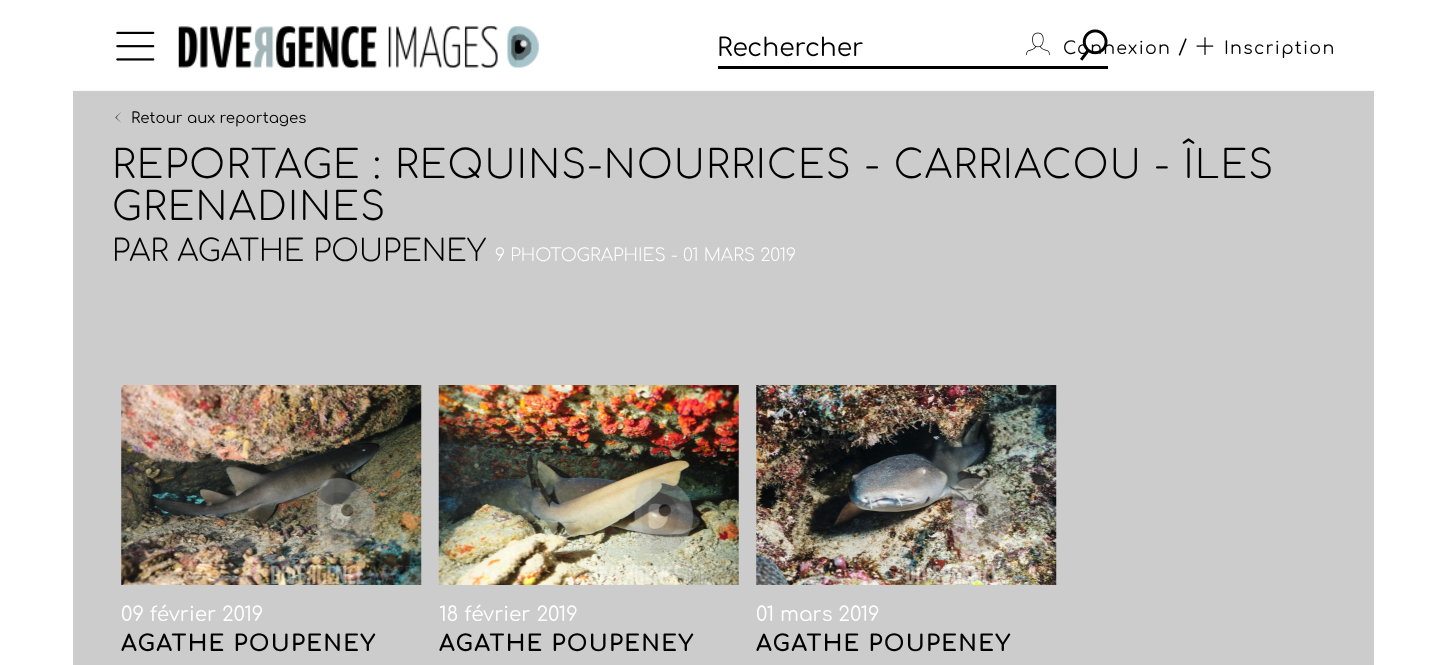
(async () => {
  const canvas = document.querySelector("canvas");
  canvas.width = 1446;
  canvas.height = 665;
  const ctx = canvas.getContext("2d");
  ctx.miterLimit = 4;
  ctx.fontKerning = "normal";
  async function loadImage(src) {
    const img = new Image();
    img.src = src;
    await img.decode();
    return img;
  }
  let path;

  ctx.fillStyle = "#ffffff";
  ctx.fillRect(0, 0, 1446, 665);
  ctx.fillStyle = "#cccccc";
  ctx.fillRect(73, 91, 1301, 574);
  ctx.fillStyle = "#fafafa";
  ctx.fillRect(73, 90, 1301, 1);
  ctx.drawImage(await loadImage("img/1.png"), 116, 31, 39, 30);
  ctx.drawImage(await loadImage("img/2.png"), 178, 26, 361, 42);
  ctx.fillStyle = "#000000";
  ctx.fillRect(718, 66, 390, 3);
  ctx.drawImage(await loadImage("img/3.png"), 1080, 29, 28, 32);
  ctx.drawImage(await loadImage("img/4.png"), 1026, 32, 24, 24);
  ctx.drawImage(await loadImage("img/5.png"), 1196, 37, 18, 18);
  path = new Path2D("M115.5 117.5L121.5 123L116 117.5L121.5 111.5Z");
  ctx.fill(path);
  path = new Path2D("M115.5 117.5L121.5 123L116 117.5L121.5 111.5Z");
  ctx.fill(path);
  ctx.drawImage(await loadImage("img/6.png"), 121, 385, 301, 200);
  ctx.drawImage(await loadImage("img/7.png"), 438, 385, 301, 200);
  ctx.drawImage(await loadImage("img/8.png"), 756, 385, 301, 200);
  ctx.font = "25px Comfortaa";
  ctx.fillText("Rechercher", 717, 56);
  ctx.letterSpacing = "1.25px";
  ctx.font = "17.5px Comfortaa";
  ctx.fillText("Connexion", 1063, 54);
  ctx.font = "20px Comfortaa";
  ctx.fillText("/", 1178, 54);
  ctx.font = "17.5px Comfortaa";
  ctx.fillText("Inscription", 1224, 54);
  ctx.letterSpacing = "0px";
  ctx.font = "15px Comfortaa";
  ctx.fillText("Retour aux reportages", 131, 123);
  ctx.letterSpacing = "1.25px";
  ctx.font = "300 38.75px Comfortaa";
  ctx.fillText("REPORTAGE : REQUINS-NOURRICES - CARRIACOU - ÎLES", 112, 178);
  ctx.fillText("GRENADINES", 112, 220);
  ctx.letterSpacing = "0px";
  ctx.font = "300 30px Comfortaa";
  ctx.fillText("PAR AGATHE POUPENEY", 112, 261);
  ctx.font = "300 17.5px Comfortaa";
  ctx.fillStyle = "#ffffff";
  ctx.fillText("9 PHOTOGRAPHIES - 01 MARS 2019", 495, 261);
  ctx.font = "20px Comfortaa";
  ctx.fillText("09 février 2019", 121, 621);
  ctx.letterSpacing = "1.25px";
  ctx.font = "bold 22.5px Comfortaa";
  ctx.fillStyle = "#000000";
  ctx.fillText("AGATHE POUPENEY", 121, 651);
  ctx.letterSpacing = "0px";
  ctx.font = "20px Comfortaa";
  ctx.fillStyle = "#ffffff";
  ctx.fillText("18 février 2019", 439, 621);
  ctx.letterSpacing = "1.25px";
  ctx.font = "bold 22.5px Comfortaa";
  ctx.fillStyle = "#000000";
  ctx.fillText("AGATHE POUPENEY", 439, 651);
  ctx.letterSpacing = "0px";
  ctx.font = "20px Comfortaa";
  ctx.fillStyle = "#ffffff";
  ctx.fillText("01 mars 2019", 756, 621);
  ctx.letterSpacing = "1.25px";
  ctx.font = "bold 22.5px Comfortaa";
  ctx.fillStyle = "#000000";
  ctx.fillText("AGATHE POUPENEY", 756, 651);
})();
